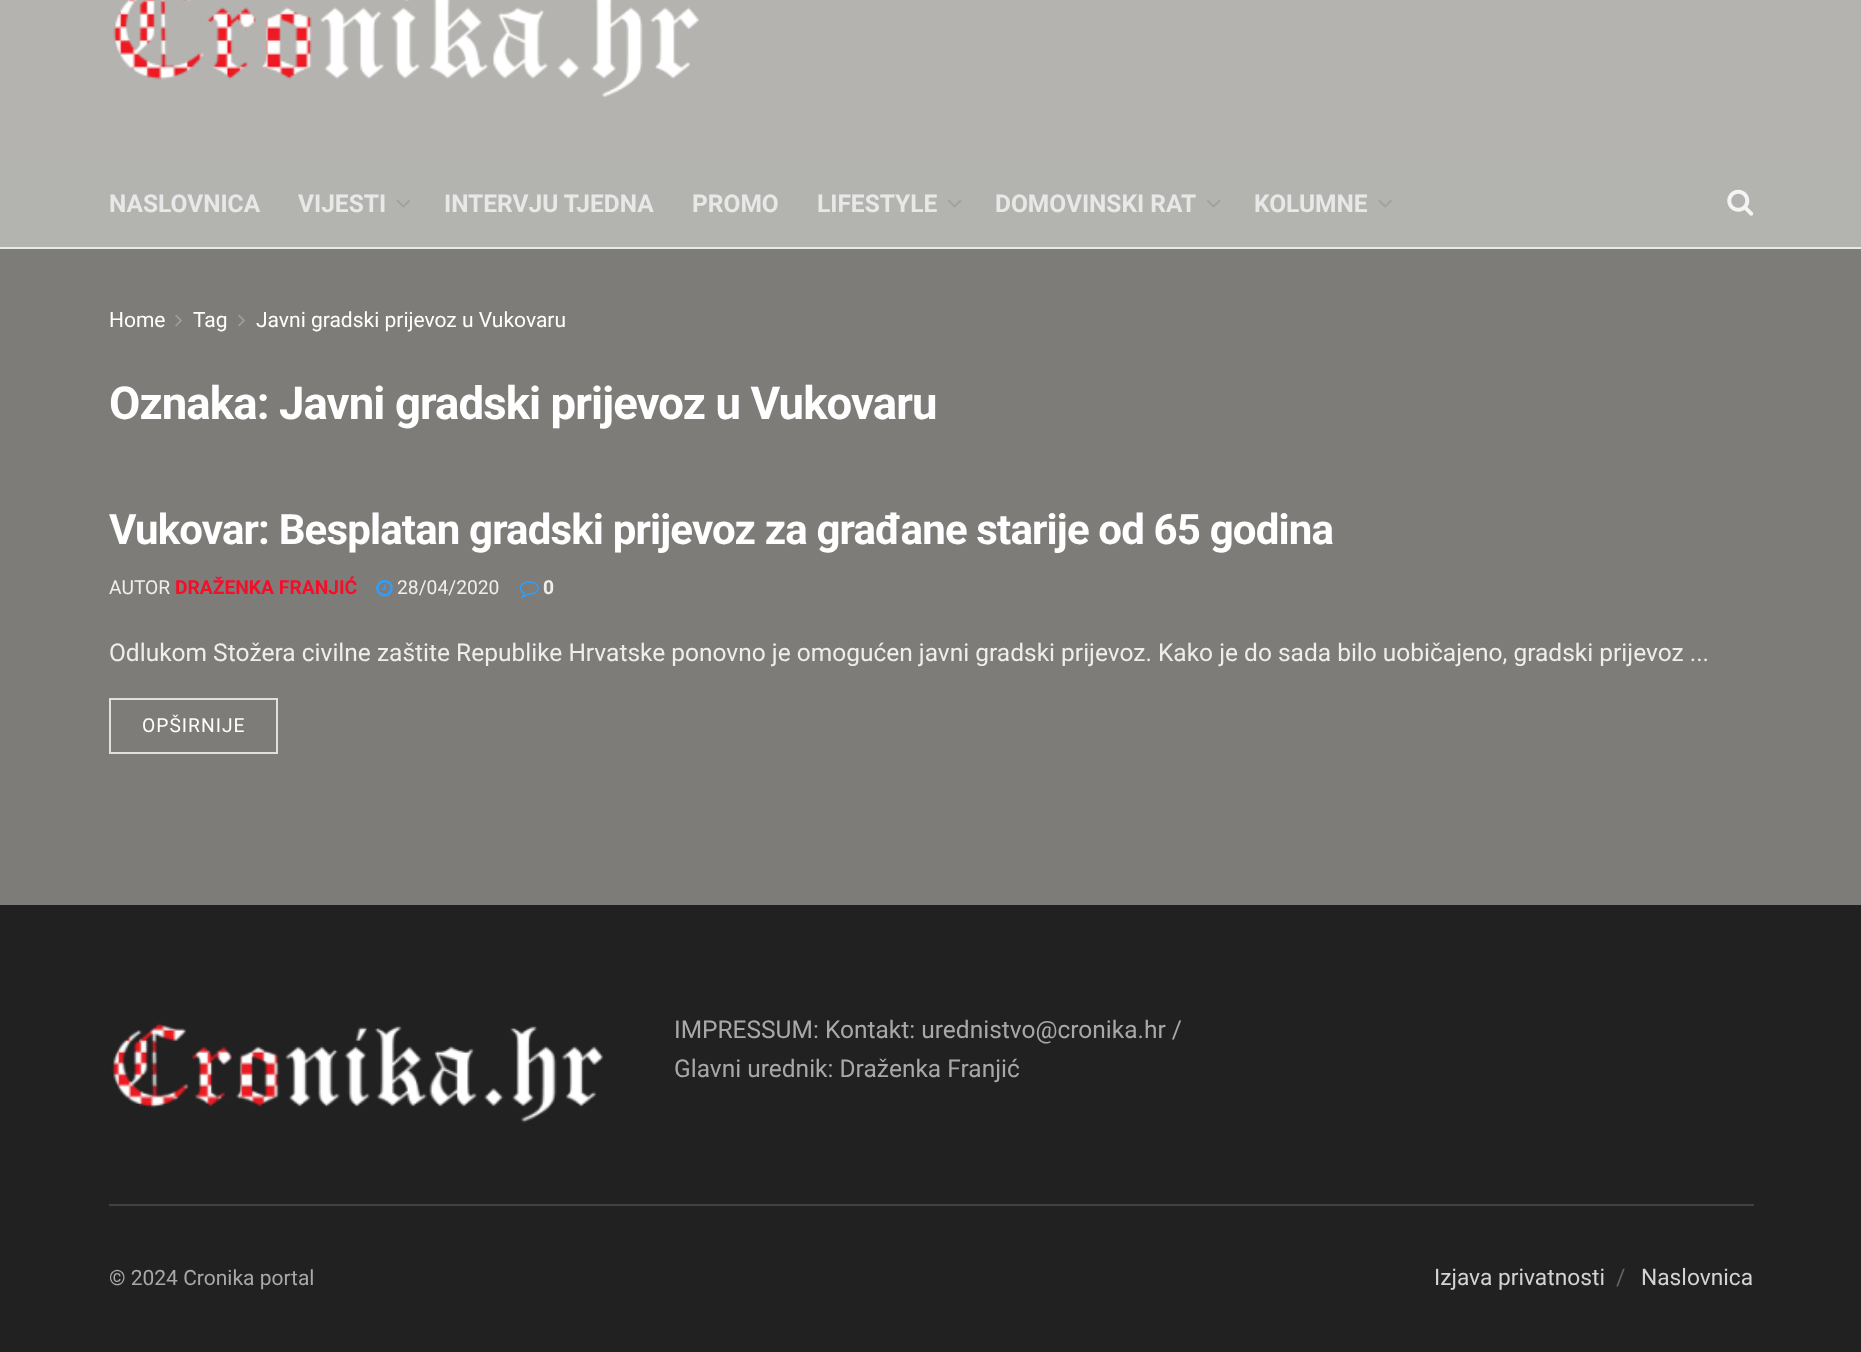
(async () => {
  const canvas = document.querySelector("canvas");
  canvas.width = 1861;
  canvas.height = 1352;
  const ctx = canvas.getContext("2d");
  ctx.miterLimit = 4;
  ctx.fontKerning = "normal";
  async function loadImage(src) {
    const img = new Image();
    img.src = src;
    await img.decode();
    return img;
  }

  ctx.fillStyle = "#7d7c79";
  ctx.fillRect(0, 0, 1861, 1352);
  ctx.fillStyle = "#b4b3b0";
  ctx.fillRect(0, 0, 1861, 159);
  ctx.drawImage(await loadImage("img/1.png"), 113, 0, 586, 97);
  ctx.fillStyle = "#b3b3b0";
  ctx.fillRect(0, 159, 1861, 88);
  ctx.fillStyle = "#e8e8e8";
  ctx.fillRect(0, 247, 1861, 2);
  ctx.drawImage(await loadImage("img/2.png"), 396, 200, 14, 8);
  ctx.drawImage(await loadImage("img/3.png"), 948, 200, 14, 8);
  ctx.drawImage(await loadImage("img/3.png"), 1207, 200, 14, 8);
  ctx.drawImage(await loadImage("img/4.png"), 1378, 200, 14, 8);
  ctx.drawImage(await loadImage("img/5.png"), 1727, 189, 27, 27);
  ctx.drawImage(await loadImage("img/6.png"), 175, 314, 7, 13);
  ctx.drawImage(await loadImage("img/6.png"), 238, 314, 7, 13);
  ctx.drawImage(await loadImage("img/7.png"), 376, 579, 17, 18);
  ctx.drawImage(await loadImage("img/8.png"), 519, 581, 20, 17);
  ctx.strokeStyle = "#e0e0e0";
  ctx.lineWidth = 2;
  ctx.strokeRect(110, 699, 167, 54);
  ctx.fillStyle = "#212121";
  ctx.fillRect(0, 905, 1861, 447);
  ctx.drawImage(await loadImage("img/9.png"), 111, 1023, 492, 100);
  ctx.fillStyle = "#424242";
  ctx.fillRect(109, 1204, 1645, 2);
  ctx.font = "bold 24.5px Roboto";
  ctx.fillStyle = "#e8e8e8";
  for (const [text, x, y] of [
    ["NASLOVNICA", 109, 212],
    ["VIJESTI", 298, 212],
    ["INTERVJU TJEDNA", 444, 212],
    ["PROMO", 692, 212],
    ["LIFESTYLE", 817, 212],
    ["DOMOVINSKI RAT", 995, 212],
    ["KOLUMNE", 1254, 212],
  ]) {
    ctx.fillText(text, x, y);
  }
  ctx.font = "21px Roboto";
  ctx.fillStyle = "#ffffff";
  for (const [text, x, y] of [
    ["Home", 109, 327],
    ["Tag", 193, 327],
    ["Javni gradski prijevoz u Vukovaru", 256, 327],
  ]) {
    ctx.fillText(text, x, y);
  }
  ctx.letterSpacing = "-0.9px";
  ctx.font = "bold 45.5px Roboto";
  ctx.fillText("Oznaka: Javni gradski prijevoz u Vukovaru", 109, 419);
  ctx.letterSpacing = "-0.85px";
  ctx.font = "bold 42px Roboto";
  ctx.fillText("Vukovar: Besplatan gradski prijevoz za građane starije od 65 godina", 109, 544);
  ctx.letterSpacing = "0px";
  ctx.font = "19.25px Roboto";
  ctx.fillStyle = "#eeeeee";
  ctx.fillText("AUTOR", 109, 594);
  ctx.font = "bold 19.25px Roboto";
  ctx.fillStyle = "#f70d28";
  ctx.fillText("DRAŽENKA FRANJIĆ", 175, 594);
  ctx.font = "19.25px Roboto";
  ctx.fillStyle = "#eeeeee";
  ctx.fillText("28/04/2020", 397, 594);
  ctx.font = "bold 19.25px Roboto";
  ctx.fillText("0", 543, 594);
  ctx.font = "24.5px Roboto";
  ctx.fillText("Odlukom Stožera civilne zaštite Republike Hrvatske ponovno je omogućen javni gradski prijevoz. Kako je do sada bilo uobičajeno, gradski prijevoz ...", 109, 661);
  ctx.letterSpacing = "1px";
  ctx.font = "19.25px Roboto";
  ctx.fillStyle = "#ffffff";
  ctx.fillText("OPŠIRNIJE", 142, 732);
  ctx.letterSpacing = "0px";
  ctx.font = "24.5px Roboto";
  ctx.fillStyle = "#a8a8aa";
  ctx.fillText("IMPRESSUM: Kontakt: urednistvo@cronika.hr /", 674, 1038);
  ctx.fillText("Glavni urednik: Draženka Franjić", 674, 1077);
  ctx.font = "21px Roboto";
  ctx.fillText("© 2024 Cronika portal", 109, 1285);
  ctx.font = "22.75px Roboto";
  ctx.fillStyle = "#d3d3d3";
  ctx.fillText("Izjava privatnosti", 1434, 1285);
  ctx.fillStyle = "#646464";
  ctx.fillText("/", 1616, 1285);
  ctx.fillStyle = "#d3d3d3";
  ctx.fillText("Naslovnica", 1641, 1285);
})();
